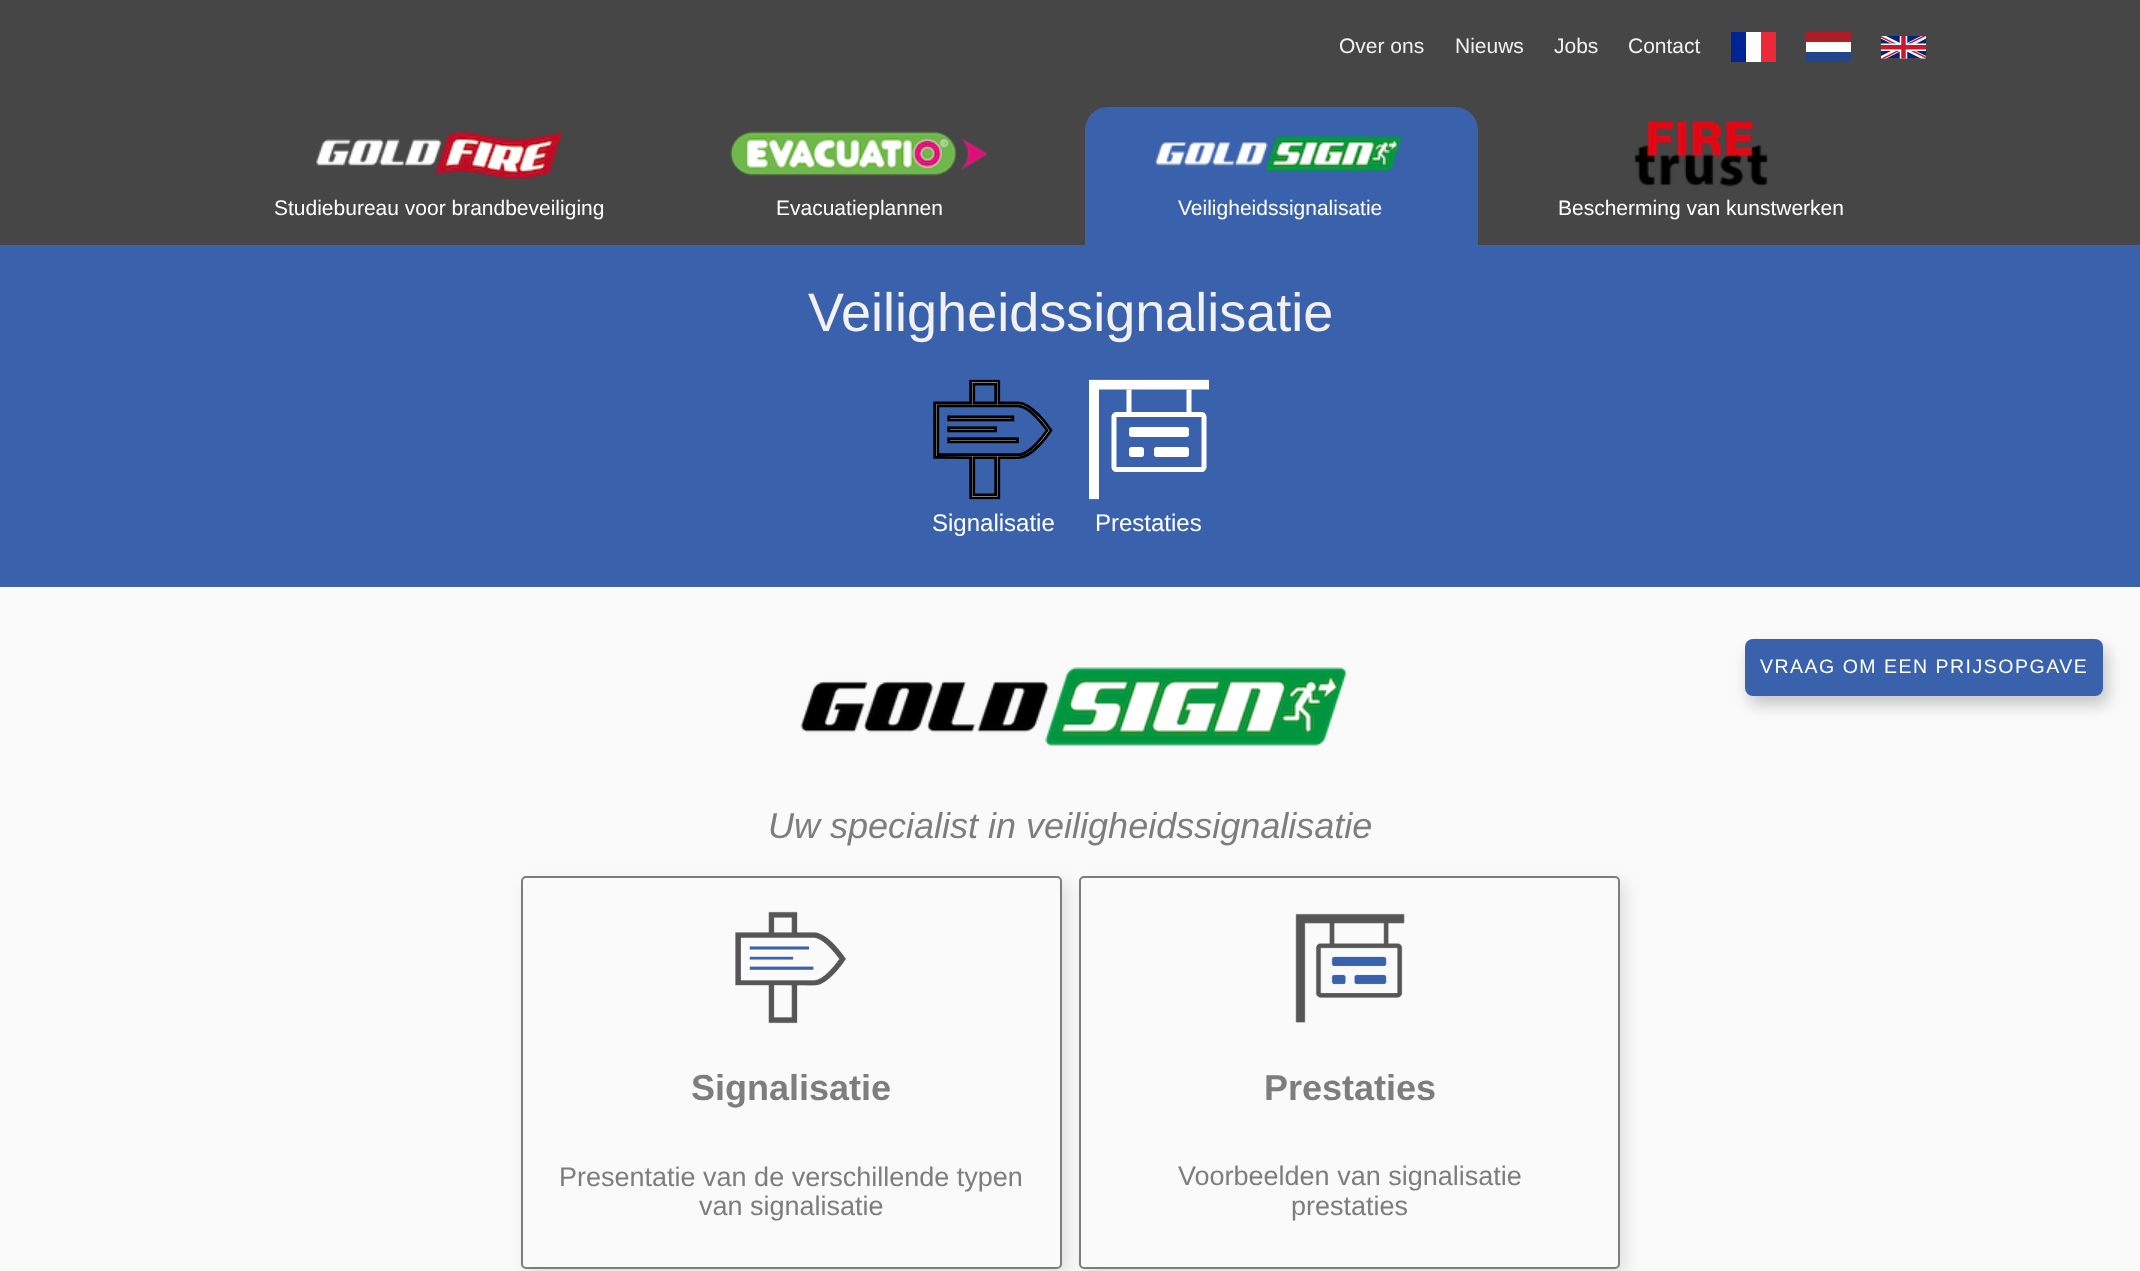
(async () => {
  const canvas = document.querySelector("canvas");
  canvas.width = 2140;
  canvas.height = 1271;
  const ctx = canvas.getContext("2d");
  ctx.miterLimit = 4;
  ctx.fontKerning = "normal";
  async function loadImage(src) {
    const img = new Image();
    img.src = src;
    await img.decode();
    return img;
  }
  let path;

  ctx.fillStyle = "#fafafa";
  ctx.fillRect(0, 0, 2140, 1271);
  for (const [x, y, w, h, color] of [
    [0, 0, 2140, 245, "#464646"],
    [1731, 32, 15, 30, "#002395"],
    [1746, 32, 15, 30, "#ffffff"],
    [1761, 32, 15, 30, "#ed2939"],
    [1806, 32, 45, 10, "#ae1c28"],
    [1806, 42, 45, 10, "#ffffff"],
    [1806, 52, 45, 10, "#21468b"],
  ]) {
    ctx.fillStyle = color;
    ctx.fillRect(x, y, w, h);
  }
  ctx.drawImage(await loadImage("img/1.png"), 1881, 36, 45, 23);
  ctx.drawImage(await loadImage("img/2.png"), 316, 131, 247, 48);
  ctx.drawImage(await loadImage("img/3.png"), 730, 131, 258, 45);
  ctx.fillStyle = "#3a62ac";
  ctx.beginPath();
  ctx.roundRect(1085, 107, 393, 138, [23, 23, 0, 0]);
  ctx.fill();
  ctx.drawImage(await loadImage("img/4.png"), 1155, 135, 247, 37);
  ctx.drawImage(await loadImage("img/5.png"), 1634, 120, 134, 67);
  ctx.fillRect(0, 245, 2140, 342);
  ctx.drawImage(await loadImage("img/6.png"), 933, 379, 120, 121);
  ctx.drawImage(await loadImage("img/7.png"), 1089, 379, 120, 121);
  ctx.fillStyle = "rgba(0, 0, 0, 0.2)";
  ctx.filter = "blur(7.5px)";
  ctx.beginPath();
  ctx.roundRect(1749, 648, 359, 57, 8);
  ctx.fill();
  ctx.filter = "none";
  ctx.fillStyle = "#3a62ac";
  ctx.beginPath();
  ctx.roundRect(1745, 639, 358, 57, 8);
  ctx.fill();
  ctx.drawImage(await loadImage("img/8.png"), 800, 667, 547, 79);
  ctx.save();
  path = new Path2D("M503 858H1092V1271H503ZM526 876H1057C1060 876 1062 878 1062 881V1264C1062 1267 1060 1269 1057 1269H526C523 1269 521 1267 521 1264V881C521 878 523 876 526 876Z");
  ctx.clip(path, "evenodd");
  ctx.fillStyle = "rgba(0, 0, 0, 0.1)";
  ctx.filter = "blur(7.5px)";
  ctx.beginPath();
  ctx.roundRect(527, 882, 541, 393, 5);
  ctx.fill();
  ctx.filter = "none";
  ctx.restore();
  ctx.beginPath();
  ctx.roundRect(522, 877, 539, 391, 4);
  ctx.strokeStyle = "rgba(0, 0, 0, 0.5)";
  ctx.lineWidth = 2;
  ctx.stroke();
  ctx.drawImage(await loadImage("img/9.png"), 735, 911, 112, 113);
  ctx.save();
  path = new Path2D("M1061 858H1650V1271H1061ZM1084 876H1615C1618 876 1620 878 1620 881V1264C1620 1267 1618 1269 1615 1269H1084C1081 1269 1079 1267 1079 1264V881C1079 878 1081 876 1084 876Z");
  ctx.clip(path, "evenodd");
  ctx.fillStyle = "rgba(0, 0, 0, 0.1)";
  ctx.filter = "blur(7.5px)";
  ctx.beginPath();
  ctx.roundRect(1085, 882, 541, 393, 5);
  ctx.fill();
  ctx.filter = "none";
  ctx.restore();
  ctx.beginPath();
  ctx.roundRect(1080, 877, 539, 391, 4);
  ctx.stroke();
  ctx.drawImage(await loadImage("img/10.png"), 1295, 913, 110, 110);
  ctx.font = "21px Liberation Sans";
  ctx.fillStyle = "#f2f1f0";
  for (const [text, x, y] of [
    ["Over ons", 1339, 53],
    ["Nieuws", 1455, 53],
    ["Jobs", 1554, 53],
    ["Contact", 1628, 53],
  ]) {
    ctx.fillText(text, x, y);
  }
  ctx.fillStyle = "#ffffff";
  for (const [text, x, y] of [
    ["Studiebureau voor brandbeveiliging", 274, 215],
    ["Evacuatieplannen", 776, 215],
    ["Veiligheidssignalisatie", 1178, 215],
    ["Bescherming van kunstwerken", 1558, 215],
  ]) {
    ctx.fillText(text, x, y);
  }
  ctx.font = "54px Liberation Sans";
  ctx.fillStyle = "#f2f1f0";
  ctx.fillText("Veiligheidssignalisatie", 808, 331);
  ctx.font = "24px Liberation Sans";
  ctx.fillStyle = "#ffffff";
  ctx.fillText("Signalisatie", 932, 531);
  ctx.fillText("Prestaties", 1095, 531);
  ctx.letterSpacing = "1.5px";
  ctx.font = "19.5px Liberation Sans";
  ctx.fillText("VRAAG OM EEN PRIJSOPGAVE", 1760, 673);
  ctx.letterSpacing = "0px";
  ctx.font = "italic 36px Liberation Sans";
  ctx.fillStyle = "#7d7d7d";
  ctx.fillText("Uw specialist in veiligheidssignalisatie", 768, 838);
  ctx.font = "bold 36px Liberation Sans";
  ctx.fillText("Signalisatie", 691, 1100);
  ctx.font = "27px Liberation Sans";
  ctx.fillText("Presentatie van de verschillende typen", 559, 1186);
  ctx.fillText("van signalisatie", 699, 1215);
  ctx.font = "bold 36px Liberation Sans";
  ctx.fillText("Prestaties", 1264, 1100);
  ctx.font = "27px Liberation Sans";
  ctx.fillText("Voorbeelden van signalisatie", 1178, 1185);
  ctx.fillText("prestaties", 1291, 1215);
})();
